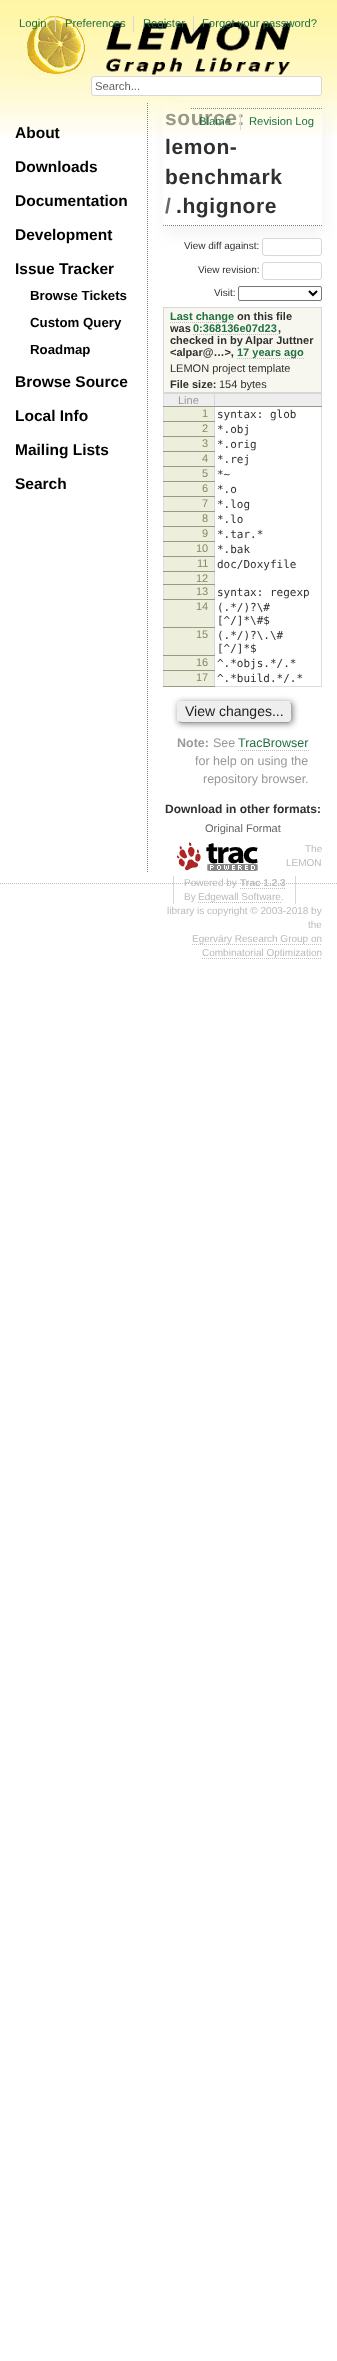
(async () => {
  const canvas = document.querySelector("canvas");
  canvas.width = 337;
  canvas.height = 2361;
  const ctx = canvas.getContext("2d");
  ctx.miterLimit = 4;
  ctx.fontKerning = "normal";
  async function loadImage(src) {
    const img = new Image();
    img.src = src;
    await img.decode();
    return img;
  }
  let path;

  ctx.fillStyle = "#ffffff";
  ctx.fillRect(0, 0, 337, 2361);
  ctx.drawImage(await loadImage("img/1.png"), 0, 0, 337, 137);
  ctx.drawImage(await loadImage("img/2.png"), 26, 15, 60, 60);
  path = new Path2D("M147.5 103V873");
  ctx.strokeStyle = "#808080";
  ctx.setLineDash([1, 1]);
  ctx.stroke(path);
  ctx.fillStyle = "#d7d7d7";
  ctx.fillRect(55, 16, 1, 16);
  ctx.drawImage(await loadImage("img/4.png"), 106, 22, 185, 53);
  ctx.fillRect(133, 16, 1, 16);
  ctx.fillRect(193, 16, 1, 16);
  ctx.fillStyle = "#ffffff";
  ctx.beginPath();
  ctx.roundRect(91.5, 76.5, 230, 19, 2.5);
  ctx.fill();
  ctx.strokeStyle = "#d7d7d7";
  ctx.setLineDash([]);
  ctx.stroke();
  ctx.save();
  path = new Path2D("M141 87H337V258H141ZM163 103H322V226H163Z");
  ctx.clip(path, "evenodd");
  ctx.fillStyle = "#f2f2f2";
  ctx.filter = "blur(7.5px)";
  ctx.beginPath();
  ctx.rect(165, 111, 159, 123);
  ctx.fill();
  ctx.filter = "none";
  ctx.restore();
  path = new Path2D("M163 225.5H322");
  ctx.strokeStyle = "#808080";
  ctx.setLineDash([1, 1]);
  ctx.stroke(path);
  ctx.beginPath();
  ctx.roundRect(262.5, 238.5, 59, 17, 2.5);
  ctx.fill();
  ctx.strokeStyle = "#d7d7d7";
  ctx.setLineDash([]);
  ctx.stroke();
  ctx.beginPath();
  ctx.roundRect(262.5, 262.5, 59, 17, 2.5);
  ctx.stroke();
  ctx.beginPath();
  ctx.roundRect(238.5, 286.5, 83, 14, 1.5);
  ctx.strokeStyle = "#767676";
  ctx.stroke();
  path = new Path2D("M309 291L313 295L317 291");
  ctx.strokeStyle = "#000000";
  ctx.lineWidth = 2;
  ctx.stroke(path);
  for (const [x, y, w, h, color] of [
    [164, 308, 157, 84, "#f7f7f0"],
    [163, 307, 159, 1, "#d7d7d7"],
    [321, 307, 1, 86, "#d7d7d7"],
    [163, 392, 159, 1, "#d7d7d7"],
    [163, 307, 1, 86, "#d7d7d7"],
  ]) {
    ctx.fillStyle = color;
    ctx.fillRect(x, y, w, h);
  }
  path = new Path2D("M170 322.5H234");
  ctx.strokeStyle = "#c0c0c0";
  ctx.lineWidth = 1;
  ctx.setLineDash([1, 1]);
  ctx.stroke(path);
  path = new Path2D("M193 334.5H278");
  ctx.stroke(path);
  path = new Path2D("M237 358.5H304");
  ctx.stroke(path);
  for (const [x, y, w, h, color] of [
    [321, 407, 1, 280, "#dddddd"],
    [215, 686, 107, 1, "#dddddd"],
    [163, 393, 1, 294, "#dddddd"],
    [215, 394, 106, 12, "#eeeeee"],
    [163, 393, 159, 1, "#d7d7d7"],
    [321, 393, 1, 14, "#d7d7d7"],
    [214, 406, 1, 281, "#d7d7d7"],
    [214, 406, 108, 1, "#999988"],
    [164, 394, 50, 12, "#eeeeee"],
    [214, 393, 1, 14, "#d7d7d7"],
    [163, 406, 52, 1, "#999988"],
    [164, 407, 50, 14, "#eeeedd"],
    [163, 421, 52, 1, "#999988"],
    [164, 422, 50, 14, "#eeeedd"],
    [163, 436, 52, 1, "#999988"],
    [164, 437, 50, 14, "#eeeedd"],
    [163, 451, 52, 1, "#999988"],
    [164, 452, 50, 14, "#eeeedd"],
    [163, 466, 52, 1, "#999988"],
    [164, 467, 50, 14, "#eeeedd"],
    [163, 481, 52, 1, "#999988"],
    [164, 482, 50, 14, "#eeeedd"],
    [163, 496, 52, 1, "#999988"],
    [164, 497, 50, 14, "#eeeedd"],
    [163, 511, 52, 1, "#999988"],
    [164, 512, 50, 14, "#eeeedd"],
    [163, 526, 52, 1, "#999988"],
    [164, 527, 50, 14, "#eeeedd"],
    [163, 541, 52, 1, "#999988"],
    [164, 542, 50, 14, "#eeeedd"],
    [163, 556, 52, 1, "#999988"],
    [164, 557, 50, 14, "#eeeedd"],
    [163, 571, 52, 1, "#999988"],
    [164, 572, 50, 12, "#eeeedd"],
    [163, 584, 52, 1, "#999988"],
    [164, 585, 50, 14, "#eeeedd"],
    [163, 599, 52, 1, "#999988"],
    [164, 600, 50, 27, "#eeeedd"],
    [163, 627, 52, 1, "#999988"],
    [164, 628, 50, 27, "#eeeedd"],
    [163, 655, 52, 1, "#999988"],
    [164, 656, 50, 14, "#eeeedd"],
    [163, 670, 52, 1, "#999988"],
    [164, 671, 50, 15, "#eeeedd"],
    [163, 686, 52, 1, "#999988"],
  ]) {
    ctx.fillStyle = color;
    ctx.fillRect(x, y, w, h);
  }
  ctx.fillStyle = "#888888";
  ctx.filter = "blur(3px)";
  ctx.beginPath();
  ctx.roundRect(178, 702, 115, 22, 4);
  ctx.fill();
  ctx.filter = "none";
  ctx.fillStyle = "#eeeeee";
  ctx.beginPath();
  ctx.roundRect(177, 701, 115, 22, 4);
  ctx.fill();
  path = new Path2D("M290.5 702.5C292.5 705 291.5 709.5 291.5 712C291.5 715 293 722.5 288 722.5H181L178.5 721.5");
  ctx.strokeStyle = "#9f9f9f";
  ctx.setLineDash([]);
  ctx.stroke(path);
  path = new Path2D("M178.5 721.5C176.5 719 177.5 714.5 177.5 712C177.5 709 176 701.5 181 701.5H288L290.5 702.5");
  ctx.strokeStyle = "#eeeeee";
  ctx.stroke(path);
  path = new Path2D("M238 750.5H309");
  ctx.strokeStyle = "#c0c0c0";
  ctx.setLineDash([1, 1]);
  ctx.stroke(path);
  path = new Path2D("M191 108.5H322");
  ctx.strokeStyle = "#808080";
  ctx.stroke(path);
  ctx.drawImage(await loadImage("img/3.png"), 177, 842, 81, 29);
  path = new Path2D("M192 944.5H322");
  ctx.strokeStyle = "#c0c0c0";
  ctx.stroke(path);
  path = new Path2D("M202 958.5H322");
  ctx.stroke(path);
  ctx.fillStyle = "#d7d7d7";
  ctx.fillRect(295, 876, 1, 28);
  ctx.fillRect(173, 876, 1, 28);
  path = new Path2D("M240 888.5H285");
  ctx.stroke(path);
  path = new Path2D("M198 902.5H281");
  ctx.stroke(path);
  ctx.font = "11.25px Liberation Sans";
  ctx.fillStyle = "#207040";
  for (const [text, x, y] of [
    ["Login", 19, 27],
    ["Preferences", 65, 27],
    ["Register", 143, 27],
    ["Forgot your password?", 202, 27],
  ]) {
    ctx.fillText(text, x, y);
  }
  ctx.letterSpacing = "0.6px";
  ctx.font = "bold 21px Liberation Sans";
  ctx.fillStyle = "#999988";
  ctx.fillText("source:", 165, 125);
  ctx.fillStyle = "#303030";
  ctx.fillText("lemon-", 165, 154);
  ctx.fillText("benchmark", 165, 184);
  ctx.fillStyle = "#666666";
  ctx.fillText("/", 165, 213);
  ctx.fillStyle = "#303030";
  ctx.fillText(".hgignore", 176, 213);
  ctx.letterSpacing = "0px";
  ctx.font = "10px Liberation Sans";
  for (const [text, x, y] of [
    ["View diff against:", 184, 249],
    ["View revision:", 198, 273],
    ["Visit:", 214, 296],
  ]) {
    ctx.fillText(text, x, y);
  }
  ctx.font = "bold 11px Liberation Sans";
  ctx.fillStyle = "#207040";
  ctx.fillText("Last change", 170, 320);
  ctx.fillStyle = "#303030";
  ctx.fillText("on this file", 237, 320);
  ctx.fillText("was", 170, 332);
  ctx.fillStyle = "#207040";
  ctx.fillText("0:368136e07d23", 193, 332);
  ctx.fillStyle = "#303030";
  for (const [text, x, y] of [
    [",", 278, 332],
    ["checked in by", 170, 344],
    ["Alpar Juttner", 245, 344],
    ["<alpar@…>,", 170, 356],
  ]) {
    ctx.fillText(text, x, y);
  }
  ctx.fillStyle = "#207040";
  ctx.fillText("17 years ago", 237, 356);
  ctx.font = "11px Liberation Sans";
  ctx.fillStyle = "#303030";
  ctx.fillText("LEMON project template", 170, 372);
  ctx.font = "bold 11px Liberation Sans";
  ctx.fillText("File size:", 170, 388);
  ctx.font = "11px Liberation Sans";
  ctx.fillText("154 bytes", 219, 388);
  ctx.fillStyle = "#999999";
  ctx.fillText("Line", 178, 404);
  ctx.fillStyle = "#888866";
  ctx.fillText("1", 202, 417);
  ctx.font = "11px DejaVu Sans Mono";
  ctx.fillStyle = "#303030";
  ctx.fillText("syntax: glob", 217, 418);
  ctx.font = "11px Liberation Sans";
  ctx.fillStyle = "#888866";
  ctx.fillText("2", 202, 432);
  ctx.font = "11px DejaVu Sans Mono";
  ctx.fillStyle = "#303030";
  ctx.fillText("*.obj", 217, 433);
  ctx.font = "11px Liberation Sans";
  ctx.fillStyle = "#888866";
  ctx.fillText("3", 202, 447);
  ctx.font = "11px DejaVu Sans Mono";
  ctx.fillStyle = "#303030";
  ctx.fillText("*.orig", 217, 448);
  ctx.font = "11px Liberation Sans";
  ctx.fillStyle = "#888866";
  ctx.fillText("4", 202, 462);
  ctx.font = "11px DejaVu Sans Mono";
  ctx.fillStyle = "#303030";
  ctx.fillText("*.rej", 217, 463);
  ctx.font = "11px Liberation Sans";
  ctx.fillStyle = "#888866";
  ctx.fillText("5", 202, 477);
  ctx.font = "11px DejaVu Sans Mono";
  ctx.fillStyle = "#303030";
  ctx.fillText("*~", 217, 478);
  ctx.font = "11px Liberation Sans";
  ctx.fillStyle = "#888866";
  ctx.fillText("6", 202, 492);
  ctx.font = "11px DejaVu Sans Mono";
  ctx.fillStyle = "#303030";
  ctx.fillText("*.o", 217, 493);
  ctx.font = "11px Liberation Sans";
  ctx.fillStyle = "#888866";
  ctx.fillText("7", 202, 507);
  ctx.font = "11px DejaVu Sans Mono";
  ctx.fillStyle = "#303030";
  ctx.fillText("*.log", 217, 508);
  ctx.font = "11px Liberation Sans";
  ctx.fillStyle = "#888866";
  ctx.fillText("8", 202, 522);
  ctx.font = "11px DejaVu Sans Mono";
  ctx.fillStyle = "#303030";
  ctx.fillText("*.lo", 217, 523);
  ctx.font = "11px Liberation Sans";
  ctx.fillStyle = "#888866";
  ctx.fillText("9", 202, 537);
  ctx.font = "11px DejaVu Sans Mono";
  ctx.fillStyle = "#303030";
  ctx.fillText("*.tar.*", 217, 538);
  ctx.font = "11px Liberation Sans";
  ctx.fillStyle = "#888866";
  ctx.fillText("10", 196, 552);
  ctx.font = "11px DejaVu Sans Mono";
  ctx.fillStyle = "#303030";
  ctx.fillText("*.bak", 217, 553);
  ctx.font = "11px Liberation Sans";
  ctx.fillStyle = "#888866";
  ctx.fillText("11", 197, 567);
  ctx.font = "11px DejaVu Sans Mono";
  ctx.fillStyle = "#303030";
  ctx.fillText("doc/Doxyfile", 217, 568);
  ctx.font = "11px Liberation Sans";
  ctx.fillStyle = "#888866";
  ctx.fillText("12", 196, 582);
  ctx.fillText("13", 196, 595);
  ctx.font = "11px DejaVu Sans Mono";
  ctx.fillStyle = "#303030";
  ctx.fillText("syntax: regexp", 217, 596);
  ctx.font = "11px Liberation Sans";
  ctx.fillStyle = "#888866";
  ctx.fillText("14", 196, 610);
  ctx.font = "11px DejaVu Sans Mono";
  ctx.fillStyle = "#303030";
  ctx.fillText("(.*/)?\\#", 217, 611);
  ctx.fillText("[^/]*\\#$", 217, 624);
  ctx.font = "11px Liberation Sans";
  ctx.fillStyle = "#888866";
  ctx.fillText("15", 196, 638);
  ctx.font = "11px DejaVu Sans Mono";
  ctx.fillStyle = "#303030";
  ctx.fillText("(.*/)?\\.\\#", 217, 639);
  ctx.fillText("[^/]*$", 217, 652);
  ctx.font = "11px Liberation Sans";
  ctx.fillStyle = "#888866";
  ctx.fillText("16", 196, 666);
  ctx.font = "11px DejaVu Sans Mono";
  ctx.fillStyle = "#303030";
  ctx.fillText("^.*objs.*/.*", 217, 667);
  ctx.font = "11px Liberation Sans";
  ctx.fillStyle = "#888866";
  ctx.fillText("17", 196, 681);
  ctx.font = "11px DejaVu Sans Mono";
  ctx.fillStyle = "#303030";
  ctx.fillText("^.*build.*/.*", 217, 682);
  ctx.font = "14px Liberation Sans";
  ctx.fillStyle = "#222222";
  ctx.fillText("View changes...", 185, 716);
  ctx.font = "bold 12.5px Liberation Sans";
  ctx.fillStyle = "#999999";
  ctx.fillText("Note:", 177, 747);
  ctx.font = "12.5px Liberation Sans";
  ctx.fillText("See", 213, 747);
  ctx.fillStyle = "#207040";
  ctx.fillText("TracBrowser", 238, 747);
  ctx.fillStyle = "#999999";
  ctx.fillText("for help on using the", 195, 765);
  ctx.fillText("repository browser.", 203, 783);
  ctx.fillStyle = "#d7d7d7";
  ctx.fillRect(240, 114, 1, 16);
  ctx.font = "11.25px Liberation Sans";
  ctx.fillStyle = "#207040";
  ctx.fillText("Blame", 199, 125);
  ctx.fillText("Revision Log", 249, 125);
  ctx.font = "bold 12px Liberation Sans";
  ctx.fillStyle = "#303030";
  ctx.fillText("Download in other formats:", 165, 813);
  ctx.font = "11px Liberation Sans";
  ctx.fillStyle = "#666666";
  ctx.fillText("Original Format", 205, 832);
  ctx.font = "10px Liberation Sans";
  ctx.fillStyle = "#bbbbbb";
  for (const [text, x, y] of [
    ["The", 305, 852],
    ["LEMON", 286, 866],
    ["library is copyright © 2003-2018 by", 167, 914],
    ["the", 308, 928],
    ["Egerváry Research Group on", 192, 942],
    ["Combinatorial Optimization", 202, 956],
    ["Powered by", 184, 886],
  ]) {
    ctx.fillText(text, x, y);
  }
  ctx.font = "bold 10px Liberation Sans";
  ctx.fillText("Trac 1.2.3", 240, 886);
  ctx.font = "10px Liberation Sans";
  ctx.fillText("By", 184, 900);
  ctx.fillText("Edgewall Software.", 198, 900);
  ctx.font = "11.25px Liberation Sans";
  ctx.fillStyle = "#606060";
  ctx.fillText("Search...", 95, 90);
  ctx.font = "bold 15.5px Liberation Sans";
  ctx.fillStyle = "#000000";
  for (const [text, x, y] of [
    ["About", 15, 138],
    ["Downloads", 15, 172],
    ["Documentation", 15, 206],
    ["Development", 15, 240],
    ["Issue Tracker", 15, 274],
  ]) {
    ctx.fillText(text, x, y);
  }
  ctx.font = "bold 13.25px Liberation Sans";
  for (const [text, x, y] of [
    ["Browse Tickets", 30, 300],
    ["Custom Query", 30, 327],
    ["Roadmap", 30, 354],
  ]) {
    ctx.fillText(text, x, y);
  }
  ctx.font = "bold 15.5px Liberation Sans";
  for (const [text, x, y] of [
    ["Browse Source", 15, 387],
    ["Local Info", 15, 421],
    ["Mailing Lists", 15, 455],
    ["Search", 15, 489],
  ]) {
    ctx.fillText(text, x, y);
  }
  path = new Path2D("M0 883.5H337");
  ctx.stroke(path);
})();
